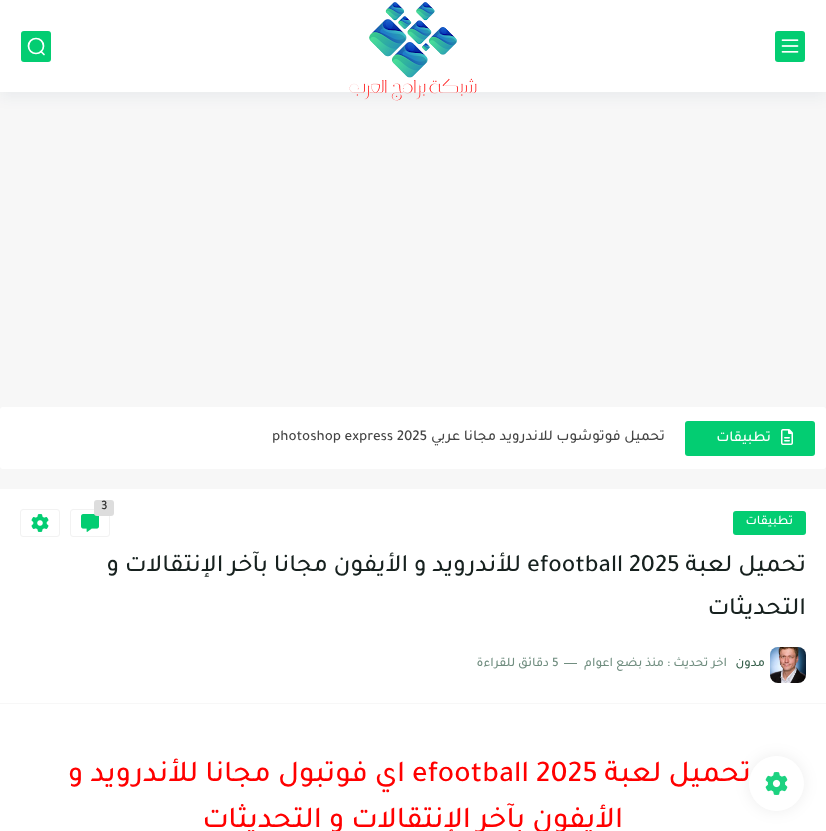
(async () => {
  const canvas = document.querySelector("canvas");
  canvas.width = 826;
  canvas.height = 831;
  const ctx = canvas.getContext("2d");
  ctx.miterLimit = 4;
  ctx.fontKerning = "normal";
  async function loadImage(src) {
    const img = new Image();
    img.src = src;
    await img.decode();
    return img;
  }
  let path;

  ctx.fillStyle = "#f7f7f7";
  ctx.fillRect(0, 0, 826, 831);
  ctx.fillStyle = "rgba(9, 32, 76, 0.05)";
  ctx.filter = "blur(7px)";
  ctx.beginPath();
  ctx.rect(0, 6, 826, 92);
  ctx.fill();
  ctx.filter = "none";
  ctx.fillStyle = "#ffffff";
  ctx.fillRect(0, 0, 826, 92);
  ctx.fillStyle = "#03cd72";
  ctx.beginPath();
  ctx.roundRect(775, 31, 30, 31, 3);
  ctx.fill();
  ctx.drawImage(await loadImage("img/1.png"), 781, 39, 18, 14);
  ctx.drawImage(await loadImage("img/2.png"), 349, 2, 128, 99);
  ctx.beginPath();
  ctx.roundRect(21, 31, 30, 31, 3);
  ctx.fill();
  ctx.beginPath();
  ctx.arc(36, 46, 7.5, 0, Math.PI * 2);
  ctx.strokeStyle = "#ffffff";
  ctx.lineWidth = 1.7;
  ctx.stroke();
  path = new Path2D("M41 51.5L44 54.5");
  ctx.lineCap = "round";
  ctx.lineJoin = "round";
  ctx.stroke(path);
  ctx.fillStyle = "#ffffff";
  ctx.beginPath();
  ctx.roundRect(0, 407, 826, 62, 3);
  ctx.fill();
  ctx.fillStyle = "#03cd72";
  ctx.beginPath();
  ctx.roundRect(685, 421, 130, 35, 3);
  ctx.fill();
  ctx.drawImage(await loadImage("img/3.png"), 781, 429, 12, 16);
  ctx.fillStyle = "#ffffff";
  ctx.fillRect(0, 489, 826, 214);
  ctx.beginPath();
  ctx.roundRect(70.5, 509.5, 39, 27, 2.5);
  ctx.strokeStyle = "#f2f2f2";
  ctx.lineWidth = 1;
  ctx.lineJoin = "miter";
  ctx.stroke();
  ctx.drawImage(await loadImage("img/4.png"), 81, 514, 18, 18);
  ctx.fillStyle = "#dddddd";
  ctx.beginPath();
  ctx.roundRect(94, 500, 20, 16, 3);
  ctx.fill();
  ctx.beginPath();
  ctx.roundRect(20.5, 509.5, 39, 27, 2.5);
  ctx.stroke();
  ctx.drawImage(await loadImage("img/5.png"), 31, 514, 18, 18);
  ctx.fillStyle = "#03cd72";
  ctx.beginPath();
  ctx.roundRect(733, 511, 73, 24, 3);
  ctx.fill();
  ctx.drawImage(await loadImage("img/6.png"), 770, 647, 36, 36);
  ctx.fillStyle = "#718e80";
  ctx.fillRect(564, 663, 13, 1);
  ctx.fillStyle = "#ffffff";
  ctx.fillRect(0, 704, 826, 127);
  ctx.fillStyle = "rgba(0, 0, 0, 0.07)";
  ctx.filter = "blur(7.5px)";
  ctx.beginPath();
  ctx.roundRect(749, 756, 55, 55, 27.5);
  ctx.fill();
  ctx.filter = "none";
  ctx.fillStyle = "#ffffff";
  ctx.beginPath();
  ctx.arc(776.5, 783.5, 27.5, 0, Math.PI * 2);
  ctx.fill();
  ctx.drawImage(await loadImage("img/7.png"), 765, 772, 23, 23);
  ctx.direction = "rtl";
  ctx.font = "500 15px Tajawal";
  ctx.fillText("تطبيقات", 771, 441);
  ctx.fillStyle = "#444444";
  ctx.fillText("تحميل فوتوشوب للاندرويد مجانا عربي", 665, 440);
  ctx.direction = "ltr";
  ctx.fillText("photoshop express 2025", 272, 440);
  ctx.font = "500 13px Tajawal";
  ctx.fillStyle = "#333333";
  ctx.fillText("3", 101, 509);
  ctx.direction = "rtl";
  ctx.fillStyle = "#ffffff";
  ctx.fillText("تطبيقات", 793, 524);
  ctx.font = "500 25px Tajawal";
  ctx.fillStyle = "#17211f";
  ctx.fillText("تحميل لعبة", 806, 571);
  ctx.direction = "ltr";
  ctx.fillText("efootball 2025", 527, 571);
  ctx.direction = "rtl";
  ctx.fillText("للأندرويد و الأيفون مجانا بآخر الإنتقالات و", 521, 571);
  ctx.fillText("التحديثات", 806, 614);
  ctx.font = "500 13px Tajawal";
  ctx.fillStyle = "#345e49";
  ctx.fillText("مدون", 765, 666);
  ctx.fillStyle = "#718e80";
  ctx.fillText("اخر تحديث :", 727, 666);
  ctx.fillText("منذ بضع اعوام", 664, 666);
  ctx.direction = "ltr";
  ctx.fillText("5", 552, 666);
  ctx.direction = "rtl";
  ctx.fillText("دقائق للقراءة", 549, 666);
  ctx.font = "500 30.4px Tajawal";
  ctx.fillStyle = "#ff0000";
  ctx.fillText("تحميل لعبة", 751, 781);
  ctx.direction = "ltr";
  ctx.fillText("efootball 2025", 412, 781);
  ctx.direction = "rtl";
  ctx.fillText("اي فوتبول مجانا للأندرويد و", 405, 781);
  ctx.fillText("الأيفون بآخر الإنتقالات و التحديثات", 623, 827);
})();
